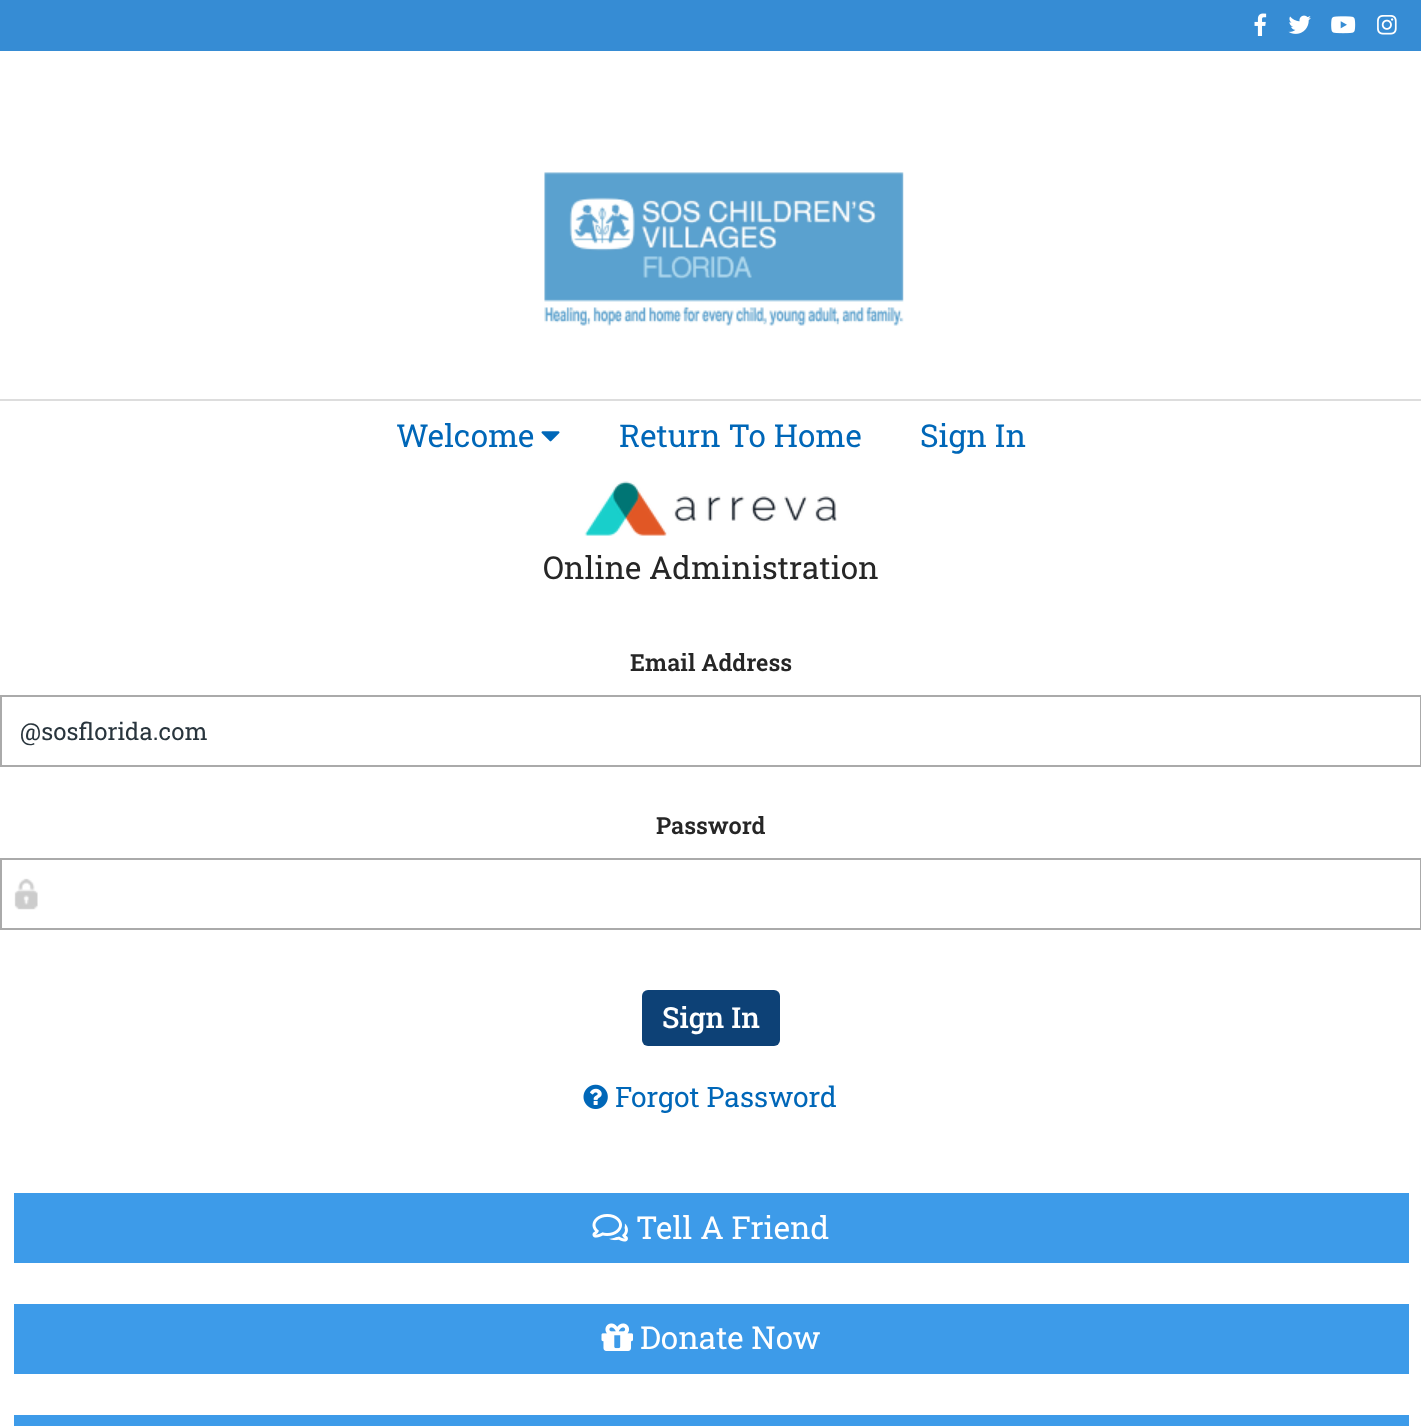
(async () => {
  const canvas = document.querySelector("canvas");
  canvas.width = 1421;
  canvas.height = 1426;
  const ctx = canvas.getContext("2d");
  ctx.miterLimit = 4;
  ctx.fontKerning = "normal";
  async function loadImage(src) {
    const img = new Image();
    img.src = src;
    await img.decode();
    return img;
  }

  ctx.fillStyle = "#ffffff";
  ctx.fillRect(0, 0, 1421, 1426);
  ctx.fillStyle = "#dddddd";
  ctx.fillRect(0, 399, 1421, 2);
  ctx.fillStyle = "#368cd4";
  ctx.fillRect(0, 0, 1421, 51);
  ctx.drawImage(await loadImage("img/1.png"), 1254, 13, 13, 23);
  ctx.drawImage(await loadImage("img/2.png"), 1288, 15, 23, 19);
  ctx.drawImage(await loadImage("img/3.png"), 1331, 16, 25, 18);
  ctx.drawImage(await loadImage("img/4.png"), 1377, 15, 20, 20);
  ctx.drawImage(await loadImage("img/5.png"), 544, 172, 360, 154);
  ctx.drawImage(await loadImage("img/6.png"), 541, 431, 19, 11);
  ctx.drawImage(await loadImage("img/7.png"), 584, 481, 253, 55);
  ctx.strokeStyle = "#aaaaaa";
  ctx.lineWidth = 2;
  ctx.strokeRect(1, 696, 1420, 70);
  ctx.drawImage(await loadImage("img/8.png"), 14, 878, 24, 32);
  ctx.strokeRect(1, 859, 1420, 70);
  ctx.fillStyle = "#0d4176";
  ctx.beginPath();
  ctx.roundRect(642, 990, 138, 56, 6);
  ctx.fill();
  ctx.drawImage(await loadImage("img/9.png"), 583, 1084, 25, 25);
  ctx.fillStyle = "#3d9be9";
  ctx.fillRect(14, 1193, 1395, 70);
  ctx.drawImage(await loadImage("img/10.png"), 592, 1214, 36, 28);
  ctx.fillRect(14, 1304, 1395, 70);
  ctx.drawImage(await loadImage("img/11.png"), 601, 1323, 32, 28);
  ctx.fillRect(14, 1415, 1395, 11);
  ctx.font = "31.5px Roboto Slab";
  ctx.fillStyle = "#0067b8";
  for (const [text, x, y] of [
    ["Welcome", 396, 447],
    ["Return To Home", 619, 447],
    ["Sign In", 920, 447],
  ]) {
    ctx.fillText(text, x, y);
  }
  ctx.fillStyle = "#262626";
  ctx.fillText("Online Administration", 543, 579);
  ctx.font = "600 23.5px Roboto Slab";
  ctx.fillText("Email Address", 630, 671);
  ctx.font = "24px Roboto Slab";
  ctx.fillStyle = "#29353d";
  ctx.fillText("@sosflorida.com", 20, 740);
  ctx.font = "600 23.5px Roboto Slab";
  ctx.fillStyle = "#262626";
  ctx.fillText("Password", 656, 834);
  ctx.font = "500 29px Roboto Slab";
  ctx.fillStyle = "#ffffff";
  ctx.fillText("Sign In", 662, 1028);
  ctx.font = "28.25px Roboto Slab";
  ctx.fillStyle = "#0067b8";
  ctx.fillText("Forgot Password", 615, 1107);
  ctx.font = "31.5px Roboto Slab";
  ctx.fillStyle = "#ffffff";
  ctx.fillText("Tell A Friend", 636, 1239);
  ctx.fillText("Donate Now", 640, 1349);
})();
